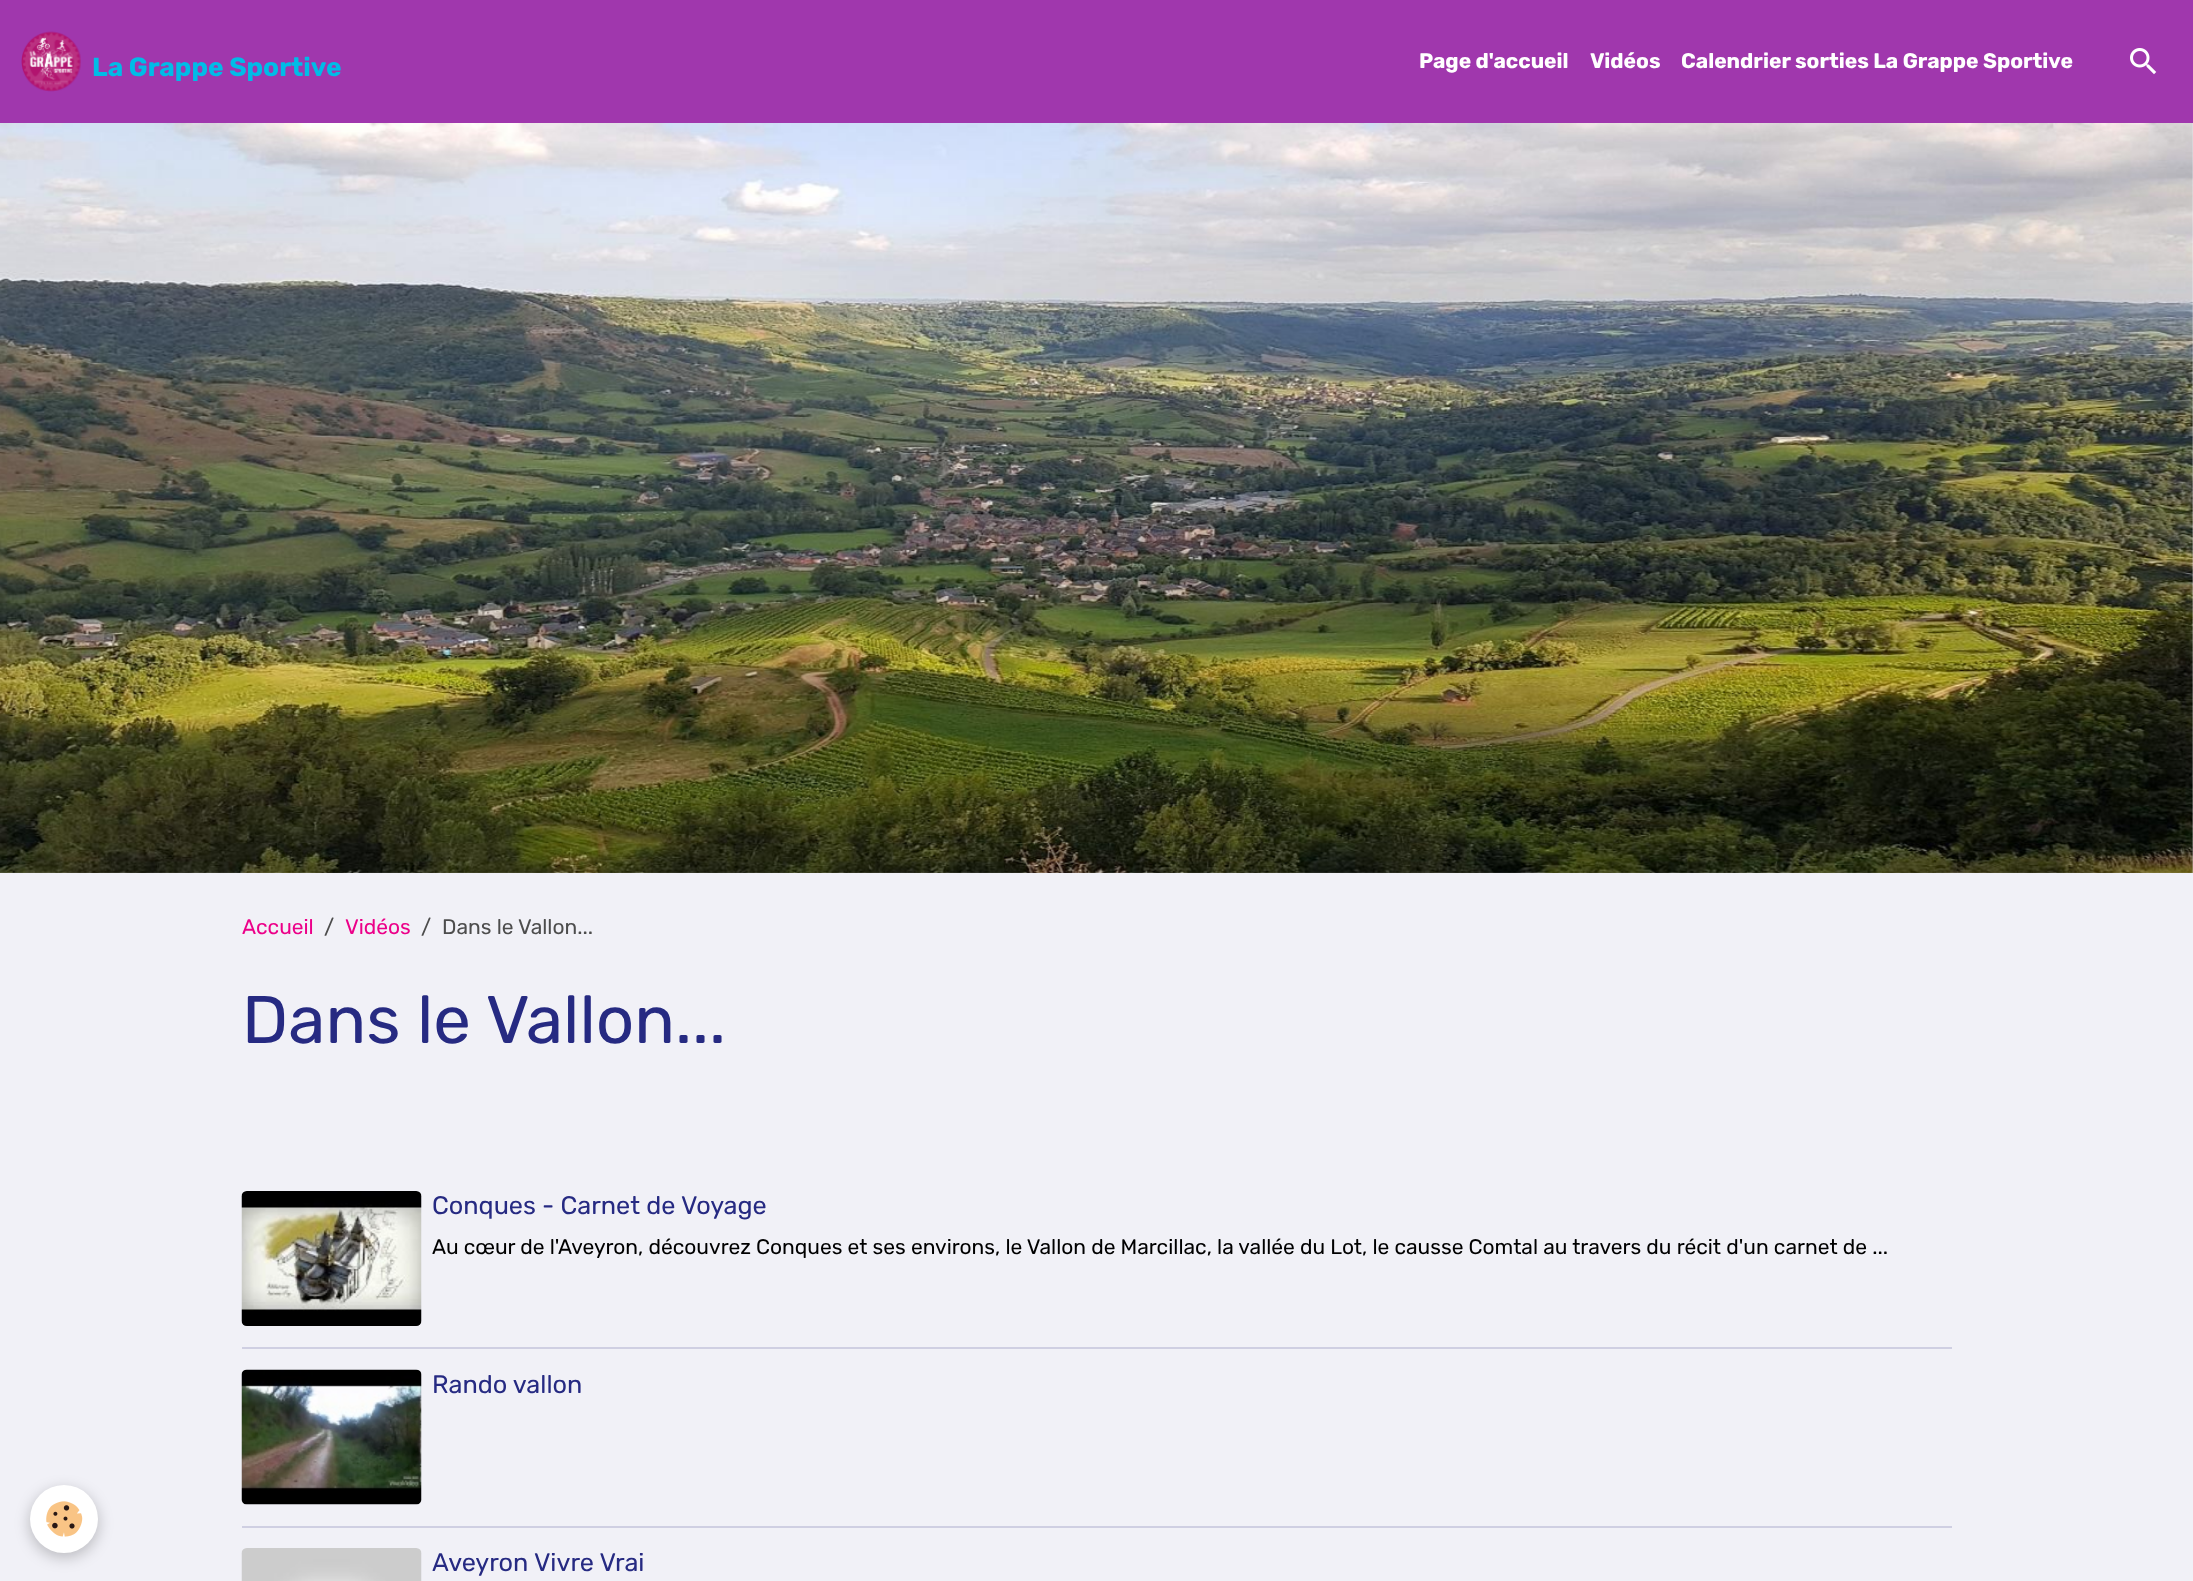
(async () => {
  const canvas = document.querySelector("canvas");
  canvas.width = 2193;
  canvas.height = 1581;
  const ctx = canvas.getContext("2d");
  ctx.miterLimit = 4;
  ctx.fontKerning = "normal";
  async function loadImage(src) {
    const img = new Image();
    img.src = src;
    await img.decode();
    return img;
  }

  ctx.fillStyle = "#f1f1f7";
  ctx.fillRect(0, 0, 2193, 1581);
  ctx.fillStyle = "#a037ad";
  ctx.fillRect(0, 0, 2193, 123);
  ctx.drawImage(await loadImage("img/1.png"), 21, 31, 60, 61);
  ctx.drawImage(await loadImage("img/2.png"), 2130, 48, 27, 27);
  ctx.drawImage(await loadImage("img/3.png"), 0, 123, 2193, 750);
  ctx.fillStyle = "rgba(0, 0, 0, 0.24)";
  ctx.filter = "blur(7.5px)";
  ctx.beginPath();
  ctx.roundRect(30, 1490, 68, 67, 33.5);
  ctx.fill();
  ctx.filter = "none";
  ctx.fillStyle = "#ffffff";
  ctx.beginPath();
  ctx.arc(64, 1519, 34, 0, Math.PI * 2);
  ctx.fill();
  ctx.drawImage(await loadImage("img/4.png"), 46, 1501, 37, 36);
  ctx.drawImage(await loadImage("img/5.png"), 241, 1191, 181, 135);
  ctx.fillStyle = "#cfcfe2";
  ctx.fillRect(242, 1347, 1710, 2);
  ctx.drawImage(await loadImage("img/6.png"), 241, 1369, 181, 136);
  ctx.fillRect(242, 1526, 1710, 2);
  ctx.drawImage(await loadImage("img/7.png"), 241, 1548, 181, 33);
  ctx.font = "bold 26.25px Rubik";
  ctx.fillStyle = "#00bce7";
  ctx.fillText("La Grappe Sportive", 92, 76);
  ctx.font = "bold 21px Rubik";
  ctx.fillStyle = "#ffffff";
  for (const [text, x, y] of [
    ["Page d'accueil", 1419, 68],
    ["Vidéos", 1590, 68],
    ["Calendrier sorties La Grappe Sportive", 1681, 68],
  ]) {
    ctx.fillText(text, x, y);
  }
  ctx.font = "21px Rubik";
  ctx.fillStyle = "#ec0089";
  ctx.fillText("Accueil", 242, 934);
  ctx.fillStyle = "#4d4d4d";
  ctx.fillText("/", 324, 934);
  ctx.fillStyle = "#ec0089";
  ctx.fillText("Vidéos", 345, 934);
  ctx.fillStyle = "#4d4d4d";
  ctx.fillText("/", 421, 934);
  ctx.fillText("Dans le Vallon...", 442, 934);
  ctx.font = "67.25px Rubik";
  ctx.fillStyle = "#262a82";
  ctx.fillText("Dans le Vallon...", 242, 1043);
  ctx.font = "25.25px Rubik";
  ctx.fillText("Conques - Carnet de Voyage", 432, 1214);
  ctx.font = "21px Rubik";
  ctx.fillStyle = "#000000";
  ctx.fillText("Au cœur de l'Aveyron, découvrez Conques et ses environs, le Vallon de Marcillac, la vallée du Lot, le causse Comtal au travers du récit d'un carnet de ...", 432, 1254);
  ctx.font = "25.25px Rubik";
  ctx.fillStyle = "#262a82";
  ctx.fillText("Rando vallon", 432, 1393);
  ctx.fillText("Aveyron Vivre Vrai", 432, 1571);
})();
